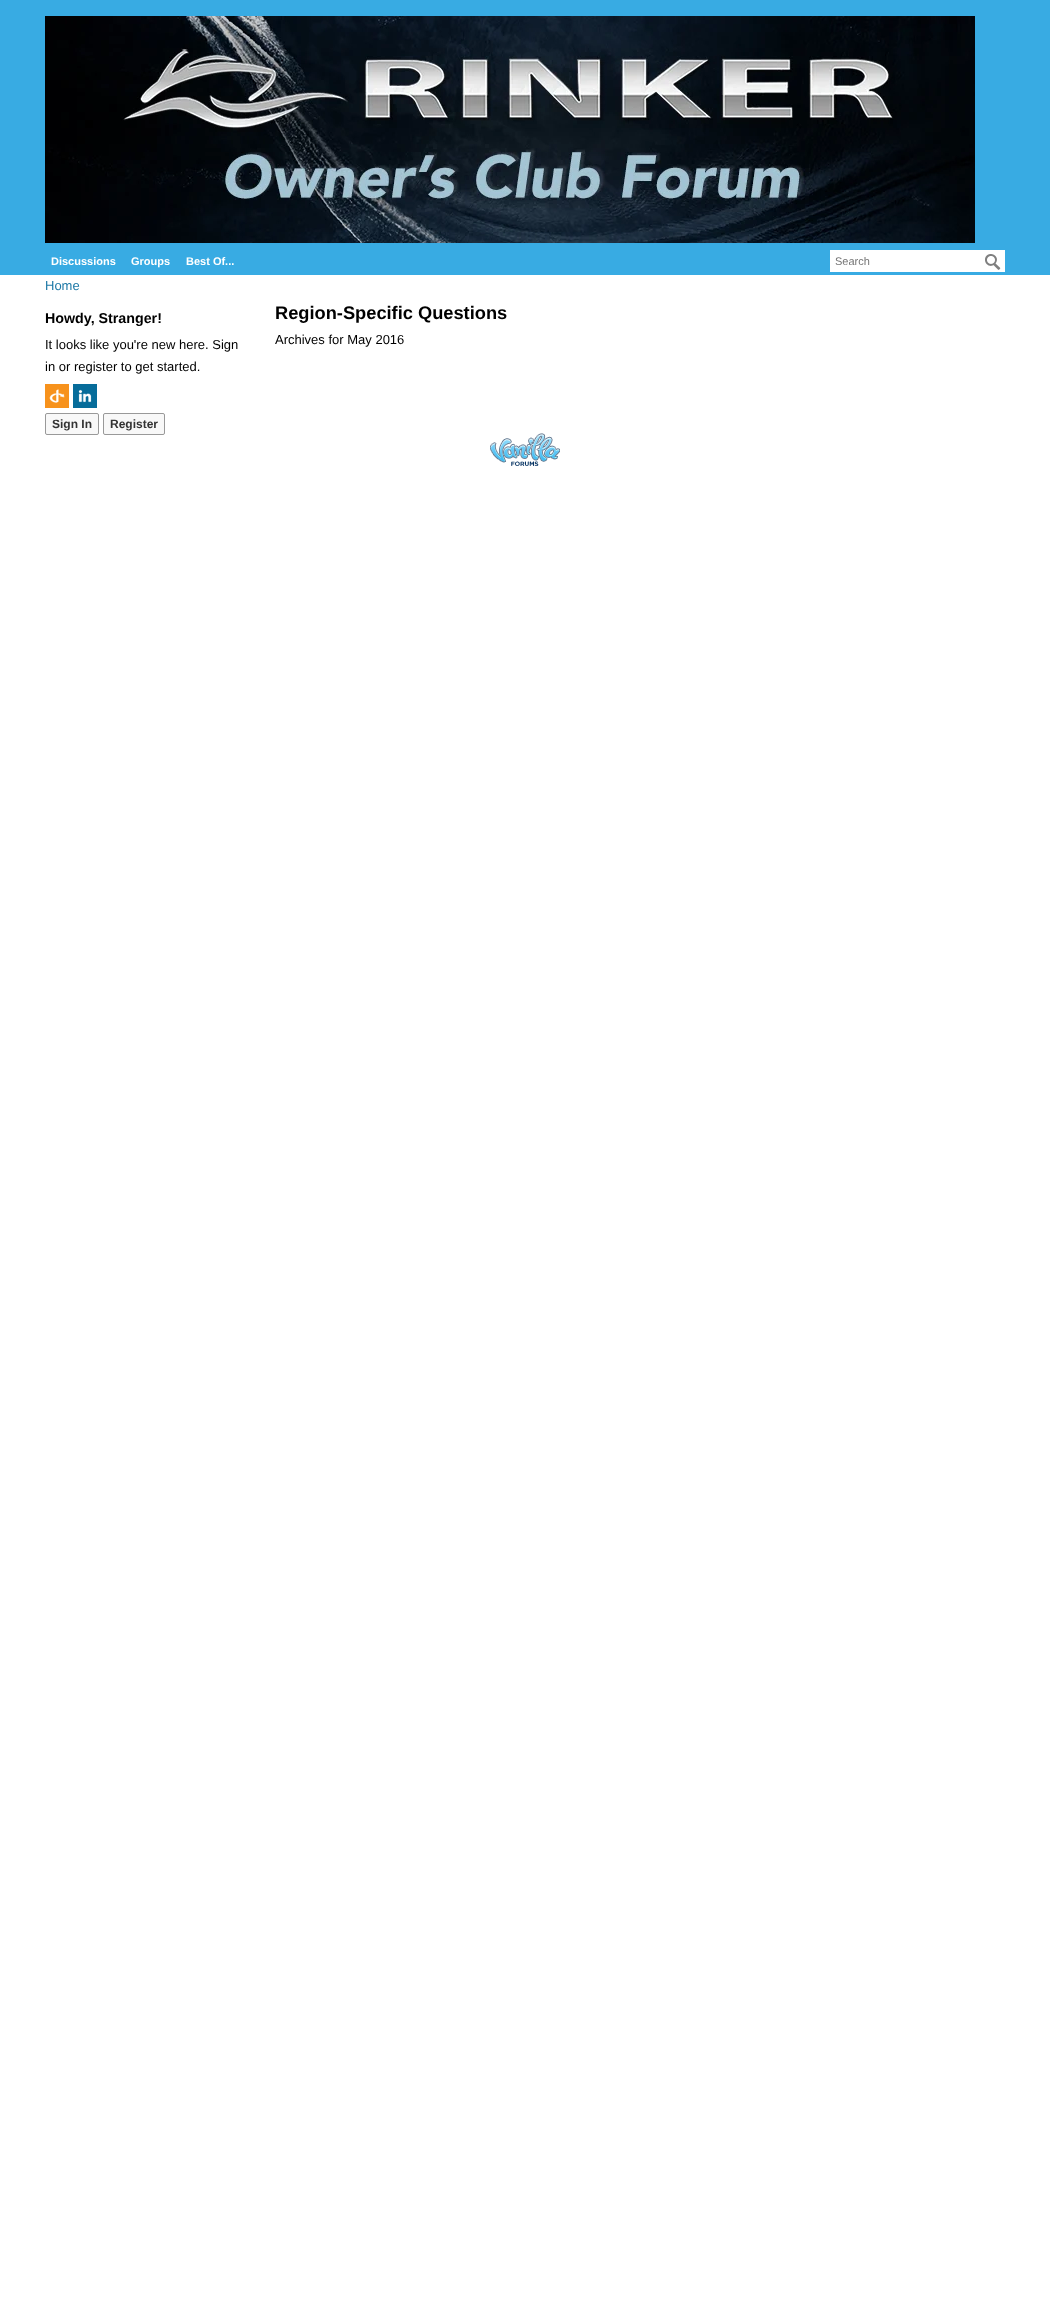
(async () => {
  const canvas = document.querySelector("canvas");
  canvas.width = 1050;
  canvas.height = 2298;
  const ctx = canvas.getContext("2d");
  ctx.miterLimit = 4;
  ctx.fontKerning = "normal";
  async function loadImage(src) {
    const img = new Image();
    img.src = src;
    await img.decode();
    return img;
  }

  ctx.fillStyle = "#ffffff";
  ctx.fillRect(0, 0, 1050, 2298);
  ctx.fillStyle = "#38abe3";
  ctx.fillRect(0, 0, 1050, 275);
  ctx.drawImage(await loadImage("img/1.png"), 45, 16, 930, 227);
  ctx.fillStyle = "#ffffff";
  ctx.fillRect(830, 250, 175, 22);
  ctx.drawImage(await loadImage("img/2.png"), 985, 254, 16, 16);
  ctx.fillStyle = "#f7921c";
  ctx.fillRect(45, 384, 24, 24);
  ctx.drawImage(await loadImage("img/3.png"), 49, 389, 16, 14);
  ctx.fillStyle = "#066c9a";
  ctx.fillRect(73, 384, 24, 24);
  ctx.drawImage(await loadImage("img/4.png"), 78, 389, 14, 14);
  ctx.fillStyle = "#f8f8f8";
  ctx.beginPath();
  ctx.roundRect(45.5, 413.5, 53, 21, 1.5);
  ctx.fill();
  ctx.strokeStyle = "#999999";
  ctx.stroke();
  ctx.beginPath();
  ctx.roundRect(103.5, 413.5, 61, 21, 1.5);
  ctx.fill();
  ctx.stroke();
  ctx.drawImage(await loadImage("img/5.png"), 490, 433, 70, 33);
  ctx.font = "bold 11px Liberation Sans";
  ctx.fillStyle = "#ffffff";
  for (const [text, x, y] of [
    ["Discussions", 51, 265],
    ["Groups", 131, 265],
    ["Best Of...", 186, 265],
  ]) {
    ctx.fillText(text, x, y);
  }
  ctx.font = "11px Liberation Sans";
  ctx.fillStyle = "#757575";
  ctx.fillText("Search", 835, 265);
  ctx.font = "13px Liberation Sans";
  ctx.fillStyle = "#1e79a7";
  ctx.fillText("Home", 45, 290);
  ctx.font = "bold 14.25px Liberation Sans";
  ctx.fillStyle = "#000000";
  ctx.fillText("Howdy, Stranger!", 45, 323);
  ctx.font = "13px Liberation Sans";
  ctx.fillText("It looks like you're new here. Sign", 45, 349);
  ctx.fillText("in or register to get started.", 45, 371);
  ctx.font = "bold 12px Liberation Sans";
  ctx.fillStyle = "#333333";
  ctx.fillText("Sign In", 52, 428);
  ctx.fillText("Register", 110, 428);
  ctx.font = "bold 18.25px Liberation Sans";
  ctx.fillStyle = "#000000";
  ctx.fillText("Region-Specific Questions", 275, 319);
  ctx.font = "13px Liberation Sans";
  ctx.fillText("Archives for May 2016", 275, 344);
})();
